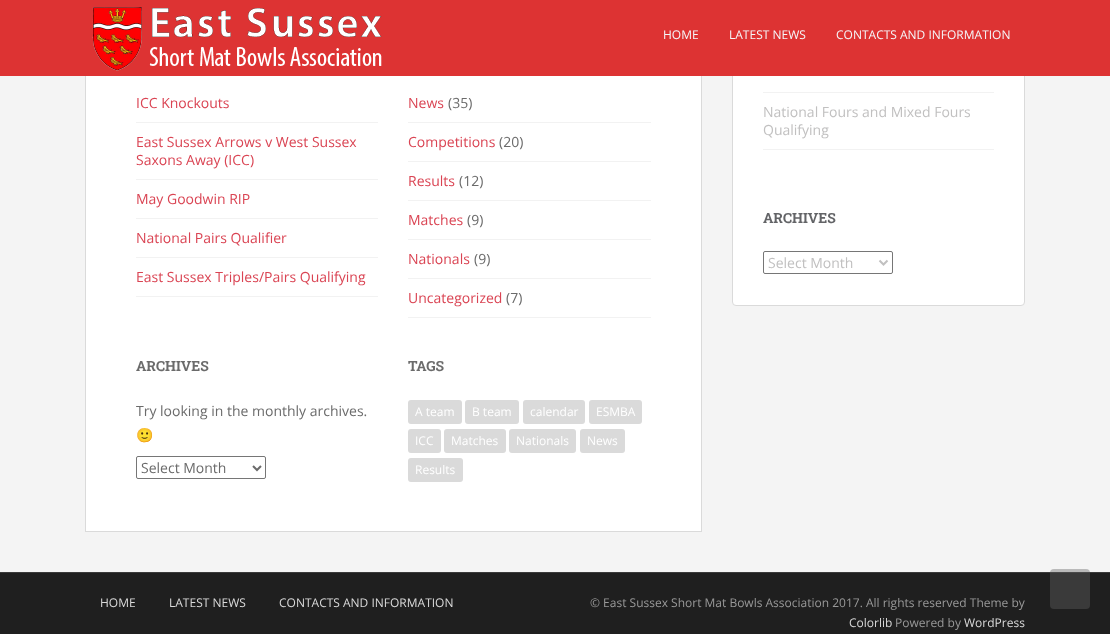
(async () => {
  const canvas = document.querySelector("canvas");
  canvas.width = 1110;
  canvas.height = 634;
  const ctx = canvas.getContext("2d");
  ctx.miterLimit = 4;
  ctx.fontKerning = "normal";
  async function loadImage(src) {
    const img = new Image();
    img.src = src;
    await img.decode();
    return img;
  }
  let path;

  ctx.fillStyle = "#f4f4f4";
  ctx.fillRect(0, 0, 1110, 634);
  ctx.fillStyle = "#ffffff";
  ctx.fillRect(86, 76, 615, 455);
  ctx.strokeStyle = "#dadada";
  ctx.strokeRect(85.5, -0.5, 616, 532);
  ctx.beginPath();
  ctx.roundRect(732.5, -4.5, 292, 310, 3.5);
  ctx.fill();
  ctx.stroke();
  ctx.fillStyle = "#dd3333";
  ctx.fillRect(0, 0, 1110, 76);
  ctx.drawImage(await loadImage("img/1.png"), 92, 7, 290, 64);
  for (const [x, y, w, h, color] of [
    [136, 122, 242, 1, "#f2f2f2"],
    [136, 179, 242, 1, "#f2f2f2"],
    [136, 218, 242, 1, "#f2f2f2"],
    [136, 257, 242, 1, "#f2f2f2"],
    [136, 296, 242, 1, "#f2f2f2"],
    [408, 122, 243, 1, "#f2f2f2"],
    [408, 161, 243, 1, "#f2f2f2"],
    [408, 200, 243, 1, "#f2f2f2"],
    [408, 239, 243, 1, "#f2f2f2"],
    [408, 278, 243, 1, "#f2f2f2"],
    [408, 317, 243, 1, "#f2f2f2"],
  ]) {
    ctx.fillStyle = color;
    ctx.fillRect(x, y, w, h);
  }
  ctx.beginPath();
  ctx.roundRect(136.5, 456.5, 129, 22, 1.5);
  ctx.strokeStyle = "#767676";
  ctx.stroke();
  path = new Path2D("M253 466L257 470L261 466");
  ctx.strokeStyle = "#6b6b6b";
  ctx.lineWidth = 2;
  ctx.stroke(path);
  ctx.fillStyle = "#dadada";
  ctx.beginPath();
  ctx.roundRect(408, 400, 54, 24, 3);
  ctx.fill();
  ctx.beginPath();
  ctx.roundRect(465, 400, 54, 24, 3);
  ctx.fill();
  ctx.beginPath();
  ctx.roundRect(523, 400, 62, 24, 3);
  ctx.fill();
  ctx.beginPath();
  ctx.roundRect(589, 400, 53, 24, 3);
  ctx.fill();
  ctx.beginPath();
  ctx.roundRect(408, 429, 33, 24, 3);
  ctx.fill();
  ctx.beginPath();
  ctx.roundRect(444, 429, 62, 24, 3);
  ctx.fill();
  ctx.beginPath();
  ctx.roundRect(509, 429, 67, 24, 3);
  ctx.fill();
  ctx.beginPath();
  ctx.roundRect(580, 429, 45, 24, 3);
  ctx.fill();
  ctx.beginPath();
  ctx.roundRect(408, 458, 55, 24, 3);
  ctx.fill();
  ctx.fillStyle = "#f2f2f2";
  ctx.fillRect(763, 92, 231, 1);
  ctx.fillRect(763, 149, 231, 1);
  ctx.beginPath();
  ctx.roundRect(763.5, 251.5, 129, 22, 1.5);
  ctx.strokeStyle = "#767676";
  ctx.lineWidth = 1;
  ctx.stroke();
  path = new Path2D("M879.5 260.5L883.5 264.5L887.5 260.5");
  ctx.strokeStyle = "#c1c0c0";
  ctx.lineWidth = 2;
  ctx.stroke(path);
  ctx.fillStyle = "#1f1f1f";
  ctx.fillRect(0, 573, 1110, 61);
  ctx.fillStyle = "#3a3a3a";
  ctx.fillRect(0, 572, 1110, 1);
  ctx.fillStyle = "rgba(100, 100, 100, 0.4)";
  ctx.beginPath();
  ctx.roundRect(1050, 569, 40, 40, 4);
  ctx.fill();
  ctx.font = "12px Open Sans";
  ctx.fillStyle = "#f5f7fa";
  for (const [text, x, y] of [
    ["HOME", 663, 39],
    ["LATEST NEWS", 729, 39],
    ["CONTACTS AND INFORMATION", 836, 39],
  ]) {
    ctx.fillText(text, x, y);
  }
  ctx.font = "14px Open Sans";
  ctx.fillStyle = "#da4453";
  for (const [text, x, y] of [
    ["ICC Knockouts", 136, 108],
    ["East Sussex Arrows v West Sussex", 136, 147],
    ["Saxons Away (ICC)", 136, 165],
    ["May Goodwin RIP", 136, 204],
    ["National Pairs Qualifier", 136, 243],
    ["East Sussex Triples/Pairs Qualifying", 136, 282],
    ["News", 408, 108],
  ]) {
    ctx.fillText(text, x, y);
  }
  ctx.fillStyle = "#6b6b6b";
  ctx.fillText("(35)", 448, 108);
  ctx.fillStyle = "#da4453";
  ctx.fillText("Competitions", 408, 147);
  ctx.fillStyle = "#6b6b6b";
  ctx.fillText("(20)", 499, 147);
  ctx.fillStyle = "#da4453";
  ctx.fillText("Results", 408, 186);
  ctx.fillStyle = "#6b6b6b";
  ctx.fillText("(12)", 459, 186);
  ctx.fillStyle = "#da4453";
  ctx.fillText("Matches", 408, 225);
  ctx.fillStyle = "#6b6b6b";
  ctx.fillText("(9)", 467, 225);
  ctx.fillStyle = "#da4453";
  ctx.fillText("Nationals", 408, 264);
  ctx.fillStyle = "#6b6b6b";
  ctx.fillText("(9)", 474, 264);
  ctx.fillStyle = "#da4453";
  ctx.fillText("Uncategorized", 408, 303);
  ctx.fillStyle = "#6b6b6b";
  ctx.fillText("(7)", 506, 303);
  ctx.font = "bold 14px Roboto Slab";
  ctx.fillText("ARCHIVES", 136, 371);
  ctx.font = "14px Open Sans";
  ctx.fillText("Try looking in the monthly archives.", 136, 416);
  ctx.font = "14px Noto Color Emoji";
  ctx.fillText("🙂", 136, 440);
  ctx.font = "14px Open Sans";
  ctx.fillText("Select Month", 141, 473);
  ctx.font = "bold 14px Roboto Slab";
  ctx.fillText("TAGS", 408, 371);
  ctx.font = "12px Open Sans";
  ctx.fillStyle = "#ffffff";
  for (const [text, x, y] of [
    ["A team", 415, 416],
    ["B team", 472, 416],
    ["calendar", 530, 416],
    ["ESMBA", 596, 416],
    ["ICC", 415, 445],
    ["Matches", 451, 445],
    ["Nationals", 516, 445],
    ["News", 587, 445],
    ["Results", 415, 474],
  ]) {
    ctx.fillText(text, x, y);
  }
  ctx.font = "14px Open Sans";
  ctx.fillStyle = "#c1c0c0";
  ctx.fillText("National Fours and Mixed Fours", 763, 117);
  ctx.fillText("Qualifying", 763, 135);
  ctx.font = "bold 14px Roboto Slab";
  ctx.fillStyle = "#636467";
  ctx.fillText("ARCHIVES", 763, 223);
  ctx.font = "14px Open Sans";
  ctx.fillStyle = "#c1c0c0";
  ctx.fillText("Select Month", 768, 268);
  ctx.font = "12px Open Sans";
  ctx.fillStyle = "#dadada";
  for (const [text, x, y] of [
    ["HOME", 100, 607],
    ["LATEST NEWS", 169, 607],
    ["CONTACTS AND INFORMATION", 279, 607],
  ]) {
    ctx.fillText(text, x, y);
  }
  ctx.fillStyle = "#999999";
  ctx.fillText("© East Sussex Short Mat Bowls Association 2017. All rights reserved Theme by", 590, 607);
  ctx.fillStyle = "#dadada";
  ctx.fillText("Colorlib", 849, 627);
  ctx.fillStyle = "#999999";
  ctx.fillText("Powered by", 895, 627);
  ctx.fillStyle = "#dadada";
  ctx.fillText("WordPress", 964, 627);
})();
